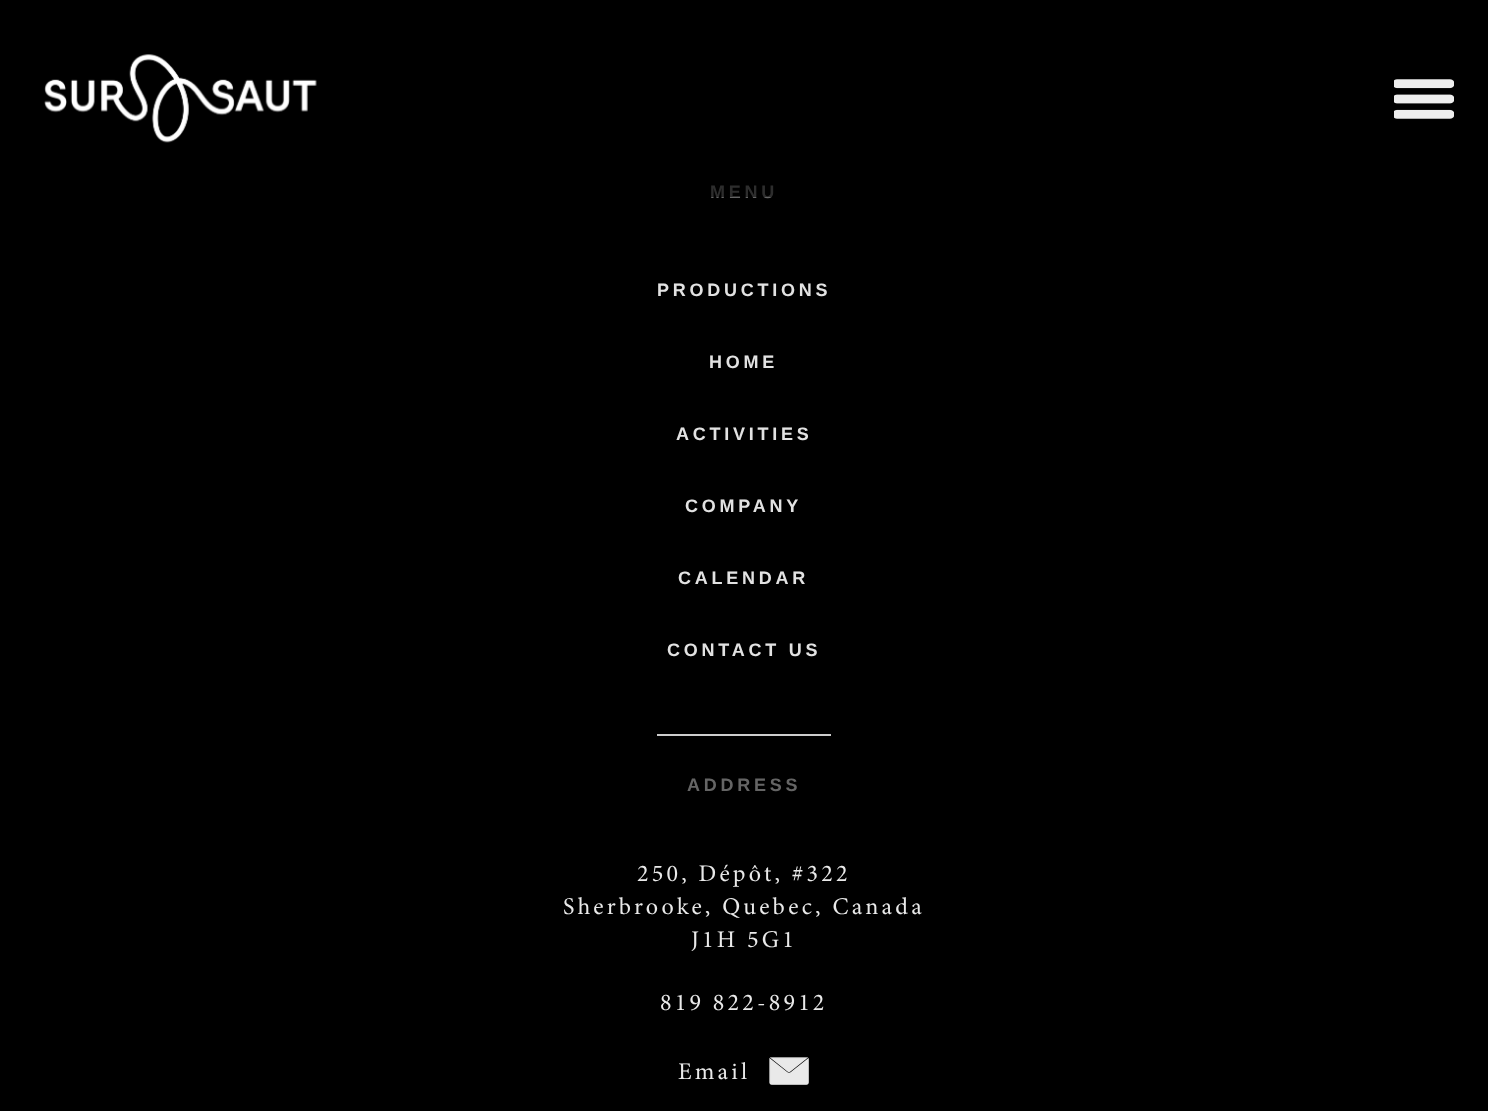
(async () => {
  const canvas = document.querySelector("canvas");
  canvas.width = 1488;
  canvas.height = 1111;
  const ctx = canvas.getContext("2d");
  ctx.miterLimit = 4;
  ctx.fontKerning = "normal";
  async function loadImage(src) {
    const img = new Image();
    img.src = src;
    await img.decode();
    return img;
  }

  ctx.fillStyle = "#000000";
  ctx.fillRect(0, 0, 1488, 1111);
  ctx.drawImage(await loadImage("img/1.png"), 44, 54, 273, 89);
  ctx.drawImage(await loadImage("img/2.png"), 1394, 79, 60, 40);
  ctx.fillStyle = "#cccccc";
  ctx.fillRect(657, 734, 174, 2);
  ctx.drawImage(await loadImage("img/3.png"), 769, 1057, 40, 28);
  ctx.letterSpacing = "3.75px";
  ctx.font = "bold 18px Liberation Sans";
  ctx.fillStyle = "#656565";
  ctx.fillText("MENU", 710, 198);
  ctx.fillStyle = "rgba(0, 0, 0, 0.55)";
  ctx.fillRect(711, 185, 63, 12);
  ctx.fillStyle = "#e2e2e2";
  for (const [text, x, y] of [
    ["PRODUCTIONS", 657, 296],
    ["HOME", 709, 368],
    ["ACTIVITIES", 676, 440],
    ["COMPANY", 685, 512],
    ["CALENDAR", 678, 584],
    ["CONTACT US", 667, 656],
  ]) {
    ctx.fillText(text, x, y);
  }
  ctx.fillStyle = "#656565";
  ctx.fillText("ADDRESS", 687, 791);
  ctx.letterSpacing = "3.2px";
  ctx.font = "24px Minion";
  ctx.fillStyle = "#e9e9e9";
  for (const [text, x, y] of [
    ["250, Dépôt, #322", 637, 881],
    ["Sherbrooke, Quebec, Canada", 563, 914],
    ["J1H 5G1", 691, 947],
    ["819 822-8912", 660, 1010],
    ["Email", 678, 1079],
  ]) {
    ctx.fillText(text, x, y);
  }
})();
